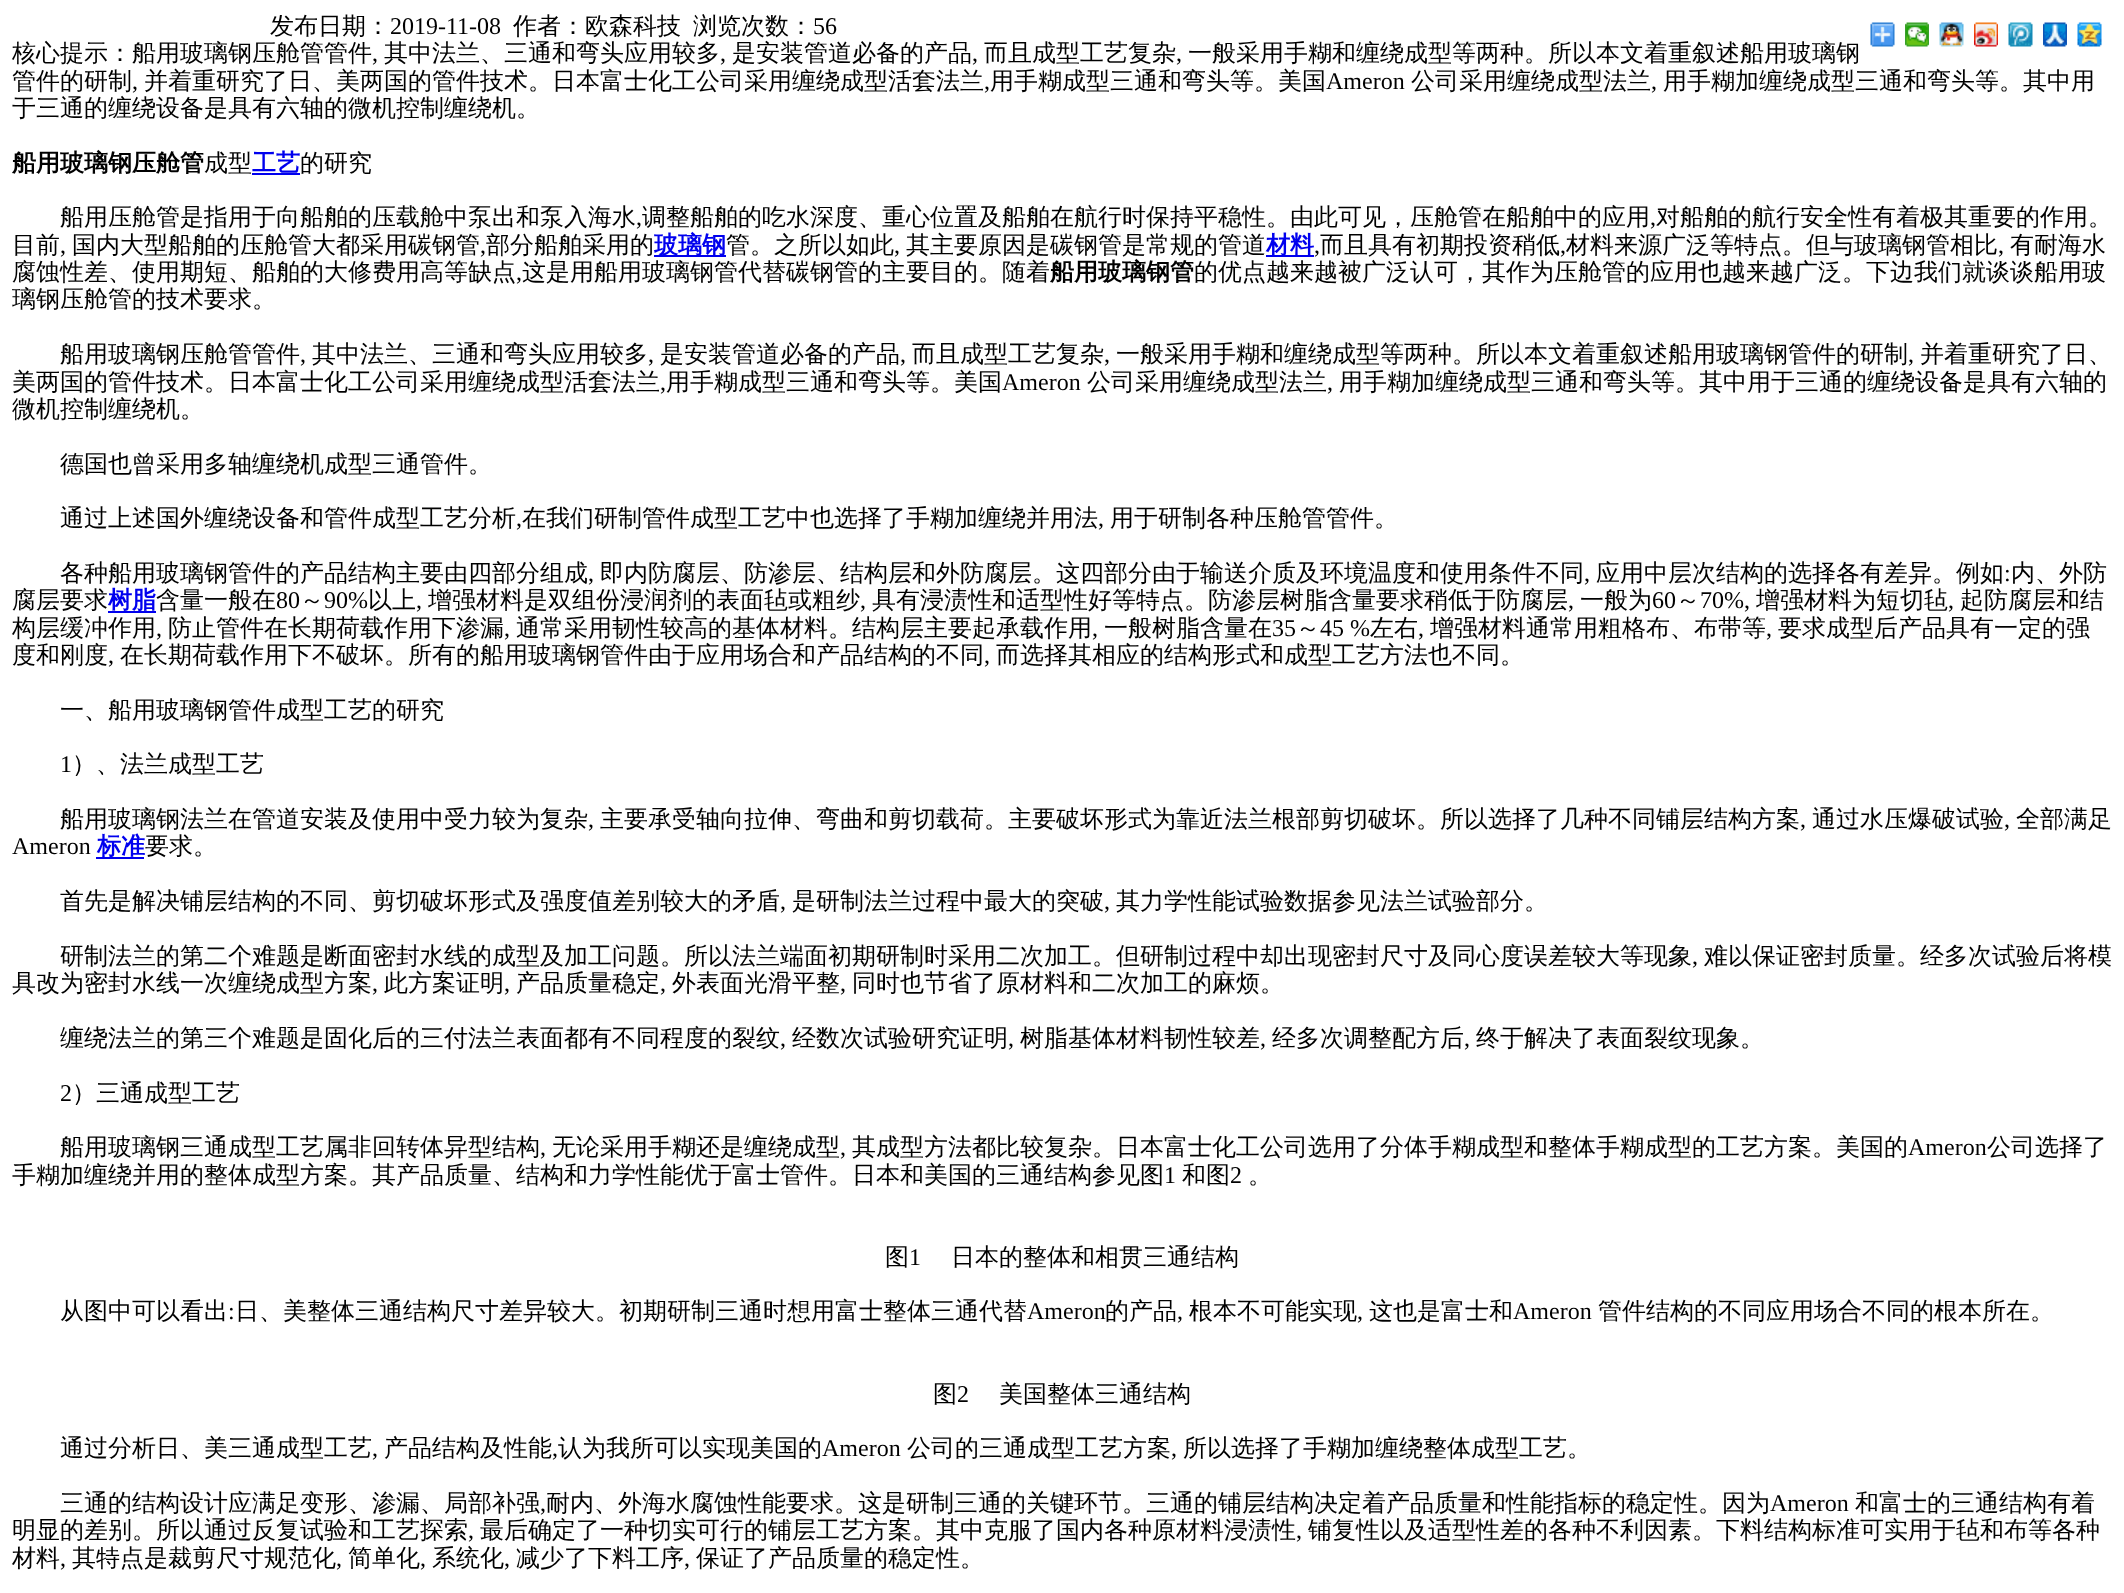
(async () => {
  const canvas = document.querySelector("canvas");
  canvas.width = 2124;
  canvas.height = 1593;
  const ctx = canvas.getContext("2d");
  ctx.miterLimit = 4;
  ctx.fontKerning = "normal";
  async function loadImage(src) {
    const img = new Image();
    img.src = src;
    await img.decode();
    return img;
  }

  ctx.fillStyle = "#ffffff";
  ctx.fillRect(0, 0, 2124, 1593);
  ctx.drawImage(await loadImage("img/1.png"), 1870, 22, 25, 25);
  ctx.drawImage(await loadImage("img/2.png"), 1905, 22, 24, 25);
  ctx.drawImage(await loadImage("img/3.png"), 1939, 22, 25, 25);
  ctx.drawImage(await loadImage("img/4.png"), 1974, 22, 24, 25);
  ctx.drawImage(await loadImage("img/5.png"), 2008, 22, 25, 25);
  ctx.drawImage(await loadImage("img/6.png"), 2043, 22, 24, 25);
  ctx.drawImage(await loadImage("img/7.png"), 2077, 22, 25, 25);
  for (const [x, y, w, h, color] of [
    [252, 173, 48, 2, "#0000ee"],
    [654, 255, 72, 2, "#0000ee"],
    [1266, 255, 48, 2, "#0000ee"],
    [108, 611, 48, 2, "#0000ee"],
    [96, 857, 48, 2, "#0000ee"],
  ]) {
    ctx.fillStyle = color;
    ctx.fillRect(x, y, w, h);
  }
  ctx.font = "500 24px WenQuanYi Zen Hei";
  ctx.fillStyle = "#000000";
  ctx.fillText("发布日期：", 270, 34);
  ctx.font = "24px Liberation Serif";
  ctx.fillText("2019-11-08", 390, 34);
  ctx.font = "500 24px WenQuanYi Zen Hei";
  ctx.fillText("作者：欧森科技", 513, 34);
  ctx.fillText("浏览次数：", 693, 34);
  ctx.font = "24px Liberation Serif";
  ctx.fillText("56", 813, 34);
  ctx.font = "500 24px WenQuanYi Zen Hei";
  ctx.fillText("核心提示：船用玻璃钢压舱管管件", 12, 61);
  ctx.font = "24px Liberation Serif";
  ctx.fillText(",", 372, 61);
  ctx.font = "500 24px WenQuanYi Zen Hei";
  ctx.fillText("其中法兰、三通和弯头应用较多", 384, 61);
  ctx.font = "24px Liberation Serif";
  ctx.fillText(",", 720, 61);
  ctx.font = "500 24px WenQuanYi Zen Hei";
  ctx.fillText("是安装管道必备的产品", 732, 61);
  ctx.font = "24px Liberation Serif";
  ctx.fillText(",", 972, 61);
  ctx.font = "500 24px WenQuanYi Zen Hei";
  ctx.fillText("而且成型工艺复杂", 984, 61);
  ctx.font = "24px Liberation Serif";
  ctx.fillText(",", 1176, 61);
  ctx.font = "500 24px WenQuanYi Zen Hei";
  ctx.fillText("一般采用手糊和缠绕成型等两种。所以本文着重叙述船用玻璃钢", 1188, 61);
  ctx.fillText("管件的研制", 12, 89);
  ctx.font = "24px Liberation Serif";
  ctx.fillText(",", 132, 89);
  ctx.font = "500 24px WenQuanYi Zen Hei";
  ctx.fillText("并着重研究了日、美两国的管件技术。日本富士化工公司采用缠绕成型活套法兰", 144, 89);
  ctx.font = "24px Liberation Serif";
  ctx.fillText(",", 984, 89);
  ctx.font = "500 24px WenQuanYi Zen Hei";
  ctx.fillText("用手糊成型三通和弯头等。美国", 990, 89);
  ctx.font = "24px Liberation Serif";
  ctx.fillText("Ameron", 1326, 89);
  ctx.font = "500 24px WenQuanYi Zen Hei";
  ctx.fillText("公司采用缠绕成型法兰", 1411, 89);
  ctx.font = "24px Liberation Serif";
  ctx.fillText(",", 1651, 89);
  ctx.font = "500 24px WenQuanYi Zen Hei";
  ctx.fillText("用手糊加缠绕成型三通和弯头等。其中用", 1663, 89);
  ctx.fillText("于三通的缠绕设备是具有六轴的微机控制缠绕机。", 12, 116);
  ctx.font = "bold 24px WenQuanYi Zen Hei";
  ctx.fillText("船用玻璃钢压舱管", 12, 171);
  ctx.font = "500 24px WenQuanYi Zen Hei";
  ctx.fillText("成型", 204, 171);
  ctx.font = "bold 24px WenQuanYi Zen Hei";
  ctx.fillStyle = "#0000ee";
  ctx.fillText("工艺", 252, 171);
  ctx.font = "500 24px WenQuanYi Zen Hei";
  ctx.fillStyle = "#000000";
  ctx.fillText("的研究", 300, 171);
  ctx.fillText("船用压舱管是指用于向船舶的压载舱中泵出和泵入海水", 60, 225);
  ctx.font = "24px Liberation Serif";
  ctx.fillText(",", 636, 225);
  ctx.font = "500 24px WenQuanYi Zen Hei";
  ctx.fillText("调整船舶的吃水深度、重心位置及船舶在航行时保持平稳性。由此可见，压舱管在船舶中的应用", 642, 225);
  ctx.font = "24px Liberation Serif";
  ctx.fillText(",", 1650, 225);
  ctx.font = "500 24px WenQuanYi Zen Hei";
  ctx.fillText("对船舶的航行安全性有着极其重要的作用。", 1656, 225);
  ctx.fillText("目前", 12, 253);
  ctx.font = "24px Liberation Serif";
  ctx.fillText(",", 60, 253);
  ctx.font = "500 24px WenQuanYi Zen Hei";
  ctx.fillText("国内大型船舶的压舱管大都采用碳钢管", 72, 253);
  ctx.font = "24px Liberation Serif";
  ctx.fillText(",", 480, 253);
  ctx.font = "500 24px WenQuanYi Zen Hei";
  ctx.fillText("部分船舶采用的", 486, 253);
  ctx.font = "bold 24px WenQuanYi Zen Hei";
  ctx.fillStyle = "#0000ee";
  ctx.fillText("玻璃钢", 654, 253);
  ctx.font = "500 24px WenQuanYi Zen Hei";
  ctx.fillStyle = "#000000";
  ctx.fillText("管。之所以如此", 726, 253);
  ctx.font = "24px Liberation Serif";
  ctx.fillText(",", 894, 253);
  ctx.font = "500 24px WenQuanYi Zen Hei";
  ctx.fillText("其主要原因是碳钢管是常规的管道", 906, 253);
  ctx.font = "bold 24px WenQuanYi Zen Hei";
  ctx.fillStyle = "#0000ee";
  ctx.fillText("材料", 1266, 253);
  ctx.font = "24px Liberation Serif";
  ctx.fillStyle = "#000000";
  ctx.fillText(",", 1314, 253);
  ctx.font = "500 24px WenQuanYi Zen Hei";
  ctx.fillText("而且具有初期投资稍低", 1320, 253);
  ctx.font = "24px Liberation Serif";
  ctx.fillText(",", 1560, 253);
  ctx.font = "500 24px WenQuanYi Zen Hei";
  ctx.fillText("材料来源广泛等特点。但与玻璃钢管相比", 1566, 253);
  ctx.font = "24px Liberation Serif";
  ctx.fillText(",", 1998, 253);
  ctx.font = "500 24px WenQuanYi Zen Hei";
  ctx.fillText("有耐海水", 2010, 253);
  ctx.fillText("腐蚀性差、使用期短、船舶的大修费用高等缺点", 12, 280);
  ctx.font = "24px Liberation Serif";
  ctx.fillText(",", 516, 280);
  ctx.font = "500 24px WenQuanYi Zen Hei";
  ctx.fillText("这是用船用玻璃钢管代替碳钢管的主要目的。随着", 522, 280);
  ctx.font = "bold 24px WenQuanYi Zen Hei";
  ctx.fillText("船用玻璃钢管", 1050, 280);
  ctx.font = "500 24px WenQuanYi Zen Hei";
  for (const [text, x, y] of [
    ["的优点越来越被广泛认可，其作为压舱管的应用也越来越广泛。下边我们就谈谈船用玻", 1194, 280],
    ["璃钢压舱管的技术要求。", 12, 307],
    ["船用玻璃钢压舱管管件", 60, 362],
  ]) {
    ctx.fillText(text, x, y);
  }
  ctx.font = "24px Liberation Serif";
  ctx.fillText(",", 300, 362);
  ctx.font = "500 24px WenQuanYi Zen Hei";
  ctx.fillText("其中法兰、三通和弯头应用较多", 312, 362);
  ctx.font = "24px Liberation Serif";
  ctx.fillText(",", 648, 362);
  ctx.font = "500 24px WenQuanYi Zen Hei";
  ctx.fillText("是安装管道必备的产品", 660, 362);
  ctx.font = "24px Liberation Serif";
  ctx.fillText(",", 900, 362);
  ctx.font = "500 24px WenQuanYi Zen Hei";
  ctx.fillText("而且成型工艺复杂", 912, 362);
  ctx.font = "24px Liberation Serif";
  ctx.fillText(",", 1104, 362);
  ctx.font = "500 24px WenQuanYi Zen Hei";
  ctx.fillText("一般采用手糊和缠绕成型等两种。所以本文着重叙述船用玻璃钢管件的研制", 1116, 362);
  ctx.font = "24px Liberation Serif";
  ctx.fillText(",", 1908, 362);
  ctx.font = "500 24px WenQuanYi Zen Hei";
  ctx.fillText("并着重研究了日、", 1920, 362);
  ctx.fillText("美两国的管件技术。日本富士化工公司采用缠绕成型活套法兰", 12, 390);
  ctx.font = "24px Liberation Serif";
  ctx.fillText(",", 660, 390);
  ctx.font = "500 24px WenQuanYi Zen Hei";
  ctx.fillText("用手糊成型三通和弯头等。美国", 666, 390);
  ctx.font = "24px Liberation Serif";
  ctx.fillText("Ameron", 1002, 390);
  ctx.font = "500 24px WenQuanYi Zen Hei";
  ctx.fillText("公司采用缠绕成型法兰", 1087, 390);
  ctx.font = "24px Liberation Serif";
  ctx.fillText(",", 1327, 390);
  ctx.font = "500 24px WenQuanYi Zen Hei";
  for (const [text, x, y] of [
    ["用手糊加缠绕成型三通和弯头等。其中用于三通的缠绕设备是具有六轴的", 1339, 390],
    ["微机控制缠绕机。", 12, 417],
    ["德国也曾采用多轴缠绕机成型三通管件。", 60, 472],
    ["通过上述国外缠绕设备和管件成型工艺分析", 60, 526],
  ]) {
    ctx.fillText(text, x, y);
  }
  ctx.font = "24px Liberation Serif";
  ctx.fillText(",", 516, 526);
  ctx.font = "500 24px WenQuanYi Zen Hei";
  ctx.fillText("在我们研制管件成型工艺中也选择了手糊加缠绕并用法", 522, 526);
  ctx.font = "24px Liberation Serif";
  ctx.fillText(",", 1098, 526);
  ctx.font = "500 24px WenQuanYi Zen Hei";
  ctx.fillText("用于研制各种压舱管管件。", 1110, 526);
  ctx.fillText("各种船用玻璃钢管件的产品结构主要由四部分组成", 60, 581);
  ctx.font = "24px Liberation Serif";
  ctx.fillText(",", 588, 581);
  ctx.font = "500 24px WenQuanYi Zen Hei";
  ctx.fillText("即内防腐层、防渗层、结构层和外防腐层。这四部分由于输送介质及环境温度和使用条件不同", 600, 581);
  ctx.font = "24px Liberation Serif";
  ctx.fillText(",", 1584, 581);
  ctx.font = "500 24px WenQuanYi Zen Hei";
  ctx.fillText("应用中层次结构的选择各有差异。例如", 1596, 581);
  ctx.font = "24px Liberation Serif";
  ctx.fillText(":", 2004, 581);
  ctx.font = "500 24px WenQuanYi Zen Hei";
  ctx.fillText("内、外防", 2011, 581);
  ctx.fillText("腐层要求", 12, 608);
  ctx.font = "bold 24px WenQuanYi Zen Hei";
  ctx.fillStyle = "#0000ee";
  ctx.fillText("树脂", 108, 608);
  ctx.font = "500 24px WenQuanYi Zen Hei";
  ctx.fillStyle = "#000000";
  ctx.fillText("含量一般在", 156, 608);
  ctx.font = "24px Liberation Serif";
  ctx.fillText("80", 276, 608);
  ctx.font = "500 24px WenQuanYi Zen Hei";
  ctx.fillText("～", 300, 608);
  ctx.font = "24px Liberation Serif";
  ctx.fillText("90%", 324, 608);
  ctx.font = "500 24px WenQuanYi Zen Hei";
  for (const [text, x, y] of [
    ["以上", 368, 608],
    ["增强材料是双组份浸润剂的表面毡或粗纱", 428, 608],
    ["具有浸渍性和适型性好等特点。防渗层树脂含量要求稍低于防腐层", 872, 608],
    ["一般为", 1580, 608],
  ]) {
    ctx.fillText(text, x, y);
  }
  ctx.font = "24px Liberation Serif";
  ctx.fillText("60", 1652, 608);
  ctx.font = "500 24px WenQuanYi Zen Hei";
  ctx.fillText("～", 1676, 608);
  ctx.font = "24px Liberation Serif";
  ctx.fillText("70%,", 1700, 608);
  ctx.font = "500 24px WenQuanYi Zen Hei";
  ctx.fillText("增强材料为短切毡", 1756, 608);
  ctx.fillText("起防腐层和结", 1960, 608);
  ctx.font = "24px Liberation Serif";
  for (const [text, x, y] of [
    [",", 416, 608],
    [",", 860, 608],
    [",", 1568, 608],
    [",", 1948, 608],
  ]) {
    ctx.fillText(text, x, y);
  }
  ctx.font = "500 24px WenQuanYi Zen Hei";
  for (const [text, x, y] of [
    ["构层缓冲作用", 12, 636],
    ["防止管件在长期荷载作用下渗漏", 168, 636],
    ["通常采用韧性较高的基体材料。结构层主要起承载作用", 516, 636],
    ["一般树脂含量在", 1104, 636],
  ]) {
    ctx.fillText(text, x, y);
  }
  ctx.font = "24px Liberation Serif";
  ctx.fillText("35", 1272, 636);
  ctx.font = "500 24px WenQuanYi Zen Hei";
  ctx.fillText("～", 1296, 636);
  ctx.font = "24px Liberation Serif";
  ctx.fillText("45 %", 1320, 636);
  ctx.font = "500 24px WenQuanYi Zen Hei";
  for (const [text, x, y] of [
    ["左右", 1370, 636],
    ["增强材料通常用粗格布、布带等", 1430, 636],
    ["要求成型后产品具有一定的强", 1778, 636],
  ]) {
    ctx.fillText(text, x, y);
  }
  ctx.font = "24px Liberation Serif";
  for (const [text, x, y] of [
    [",", 156, 636],
    [",", 504, 636],
    [",", 1092, 636],
    [",", 1418, 636],
    [",", 1766, 636],
  ]) {
    ctx.fillText(text, x, y);
  }
  ctx.font = "500 24px WenQuanYi Zen Hei";
  ctx.fillText("度和刚度", 12, 663);
  ctx.font = "24px Liberation Serif";
  ctx.fillText(",", 108, 663);
  ctx.font = "500 24px WenQuanYi Zen Hei";
  ctx.fillText("在长期荷载作用下不破坏。所有的船用玻璃钢管件由于应用场合和产品结构的不同", 120, 663);
  ctx.font = "24px Liberation Serif";
  ctx.fillText(",", 984, 663);
  ctx.font = "500 24px WenQuanYi Zen Hei";
  ctx.fillText("而选择其相应的结构形式和成型工艺方法也不同。", 996, 663);
  ctx.fillText("一、船用玻璃钢管件成型工艺的研究", 60, 718);
  ctx.font = "24px Liberation Serif";
  ctx.fillText("1", 60, 772);
  ctx.font = "500 24px WenQuanYi Zen Hei";
  ctx.fillText("）、法兰成型工艺", 72, 772);
  ctx.fillText("船用玻璃钢法兰在管道安装及使用中受力较为复杂", 60, 827);
  ctx.font = "24px Liberation Serif";
  ctx.fillText(",", 588, 827);
  ctx.font = "500 24px WenQuanYi Zen Hei";
  ctx.fillText("主要承受轴向拉伸、弯曲和剪切载荷。主要破坏形式为靠近法兰根部剪切破坏。所以选择了几种不同铺层结构方案", 600, 827);
  ctx.font = "24px Liberation Serif";
  ctx.fillText(",", 1800, 827);
  ctx.font = "500 24px WenQuanYi Zen Hei";
  ctx.fillText("通过水压爆破试验", 1812, 827);
  ctx.font = "24px Liberation Serif";
  ctx.fillText(",", 2004, 827);
  ctx.font = "500 24px WenQuanYi Zen Hei";
  ctx.fillText("全部满足", 2016, 827);
  ctx.font = "24px Liberation Serif";
  ctx.fillText("Ameron", 12, 854);
  ctx.font = "bold 24px WenQuanYi Zen Hei";
  ctx.fillStyle = "#0000ee";
  ctx.fillText("标准", 97, 854);
  ctx.font = "500 24px WenQuanYi Zen Hei";
  ctx.fillStyle = "#000000";
  ctx.fillText("要求。", 145, 854);
  ctx.fillText("首先是解决铺层结构的不同、剪切破坏形式及强度值差别较大的矛盾", 60, 909);
  ctx.font = "24px Liberation Serif";
  ctx.fillText(",", 780, 909);
  ctx.font = "500 24px WenQuanYi Zen Hei";
  ctx.fillText("是研制法兰过程中最大的突破", 792, 909);
  ctx.font = "24px Liberation Serif";
  ctx.fillText(",", 1104, 909);
  ctx.font = "500 24px WenQuanYi Zen Hei";
  ctx.fillText("其力学性能试验数据参见法兰试验部分。", 1116, 909);
  ctx.fillText("研制法兰的第二个难题是断面密封水线的成型及加工问题。所以法兰端面初期研制时采用二次加工。但研制过程中却出现密封尺寸及同心度误差较大等现象", 60, 964);
  ctx.font = "24px Liberation Serif";
  ctx.fillText(",", 1692, 964);
  ctx.font = "500 24px WenQuanYi Zen Hei";
  ctx.fillText("难以保证密封质量。经多次试验后将模", 1704, 964);
  ctx.fillText("具改为密封水线一次缠绕成型方案", 12, 991);
  ctx.font = "24px Liberation Serif";
  ctx.fillText(",", 372, 991);
  ctx.font = "500 24px WenQuanYi Zen Hei";
  ctx.fillText("此方案证明", 384, 991);
  ctx.font = "24px Liberation Serif";
  ctx.fillText(",", 504, 991);
  ctx.font = "500 24px WenQuanYi Zen Hei";
  ctx.fillText("产品质量稳定", 516, 991);
  ctx.font = "24px Liberation Serif";
  ctx.fillText(",", 660, 991);
  ctx.font = "500 24px WenQuanYi Zen Hei";
  ctx.fillText("外表面光滑平整", 672, 991);
  ctx.font = "24px Liberation Serif";
  ctx.fillText(",", 840, 991);
  ctx.font = "500 24px WenQuanYi Zen Hei";
  ctx.fillText("同时也节省了原材料和二次加工的麻烦。", 852, 991);
  ctx.fillText("缠绕法兰的第三个难题是固化后的三付法兰表面都有不同程度的裂纹", 60, 1046);
  ctx.font = "24px Liberation Serif";
  ctx.fillText(",", 780, 1046);
  ctx.font = "500 24px WenQuanYi Zen Hei";
  ctx.fillText("经数次试验研究证明", 792, 1046);
  ctx.font = "24px Liberation Serif";
  ctx.fillText(",", 1008, 1046);
  ctx.font = "500 24px WenQuanYi Zen Hei";
  ctx.fillText("树脂基体材料韧性较差", 1020, 1046);
  ctx.font = "24px Liberation Serif";
  ctx.fillText(",", 1260, 1046);
  ctx.font = "500 24px WenQuanYi Zen Hei";
  ctx.fillText("经多次调整配方后", 1272, 1046);
  ctx.font = "24px Liberation Serif";
  ctx.fillText(",", 1464, 1046);
  ctx.font = "500 24px WenQuanYi Zen Hei";
  ctx.fillText("终于解决了表面裂纹现象。", 1476, 1046);
  ctx.font = "24px Liberation Serif";
  ctx.fillText("2", 60, 1101);
  ctx.font = "500 24px WenQuanYi Zen Hei";
  ctx.fillText("）三通成型工艺", 72, 1101);
  ctx.fillText("船用玻璃钢三通成型工艺属非回转体异型结构", 60, 1155);
  ctx.font = "24px Liberation Serif";
  ctx.fillText(",", 540, 1155);
  ctx.font = "500 24px WenQuanYi Zen Hei";
  ctx.fillText("无论采用手糊还是缠绕成型", 552, 1155);
  ctx.font = "24px Liberation Serif";
  ctx.fillText(",", 840, 1155);
  ctx.font = "500 24px WenQuanYi Zen Hei";
  ctx.fillText("其成型方法都比较复杂。日本富士化工公司选用了分体手糊成型和整体手糊成型的工艺方案。美国的", 852, 1155);
  ctx.font = "24px Liberation Serif";
  ctx.fillText("Ameron", 1908, 1155);
  ctx.font = "500 24px WenQuanYi Zen Hei";
  ctx.fillText("公司选择了", 1987, 1155);
  ctx.fillText("手糊加缠绕并用的整体成型方案。其产品质量、结构和力学性能优于富士管件。日本和美国的三通结构参见图", 12, 1183);
  ctx.font = "24px Liberation Serif";
  ctx.fillText("1", 1164, 1183);
  ctx.font = "500 24px WenQuanYi Zen Hei";
  ctx.fillText("和图", 1182, 1183);
  ctx.font = "24px Liberation Serif";
  ctx.fillText("2", 1230, 1183);
  ctx.font = "500 24px WenQuanYi Zen Hei";
  ctx.fillText("。", 1248, 1183);
  ctx.fillText("图", 885, 1265);
  ctx.font = "24px Liberation Serif";
  ctx.fillText("1", 909, 1265);
  ctx.font = "500 24px WenQuanYi Zen Hei";
  ctx.fillText("日本的整体和相贯三通结构", 951, 1265);
  ctx.fillText("从图中可以看出", 60, 1319);
  ctx.font = "24px Liberation Serif";
  ctx.fillText(":", 228, 1319);
  ctx.font = "500 24px WenQuanYi Zen Hei";
  ctx.fillText("日、美整体三通结构尺寸差异较大。初期研制三通时想用富士整体三通代替", 235, 1319);
  ctx.font = "24px Liberation Serif";
  ctx.fillText("Ameron", 1027, 1319);
  ctx.font = "500 24px WenQuanYi Zen Hei";
  ctx.fillText("的产品", 1105, 1319);
  ctx.font = "24px Liberation Serif";
  ctx.fillText(",", 1177, 1319);
  ctx.font = "500 24px WenQuanYi Zen Hei";
  ctx.fillText("根本不可能实现", 1189, 1319);
  ctx.font = "24px Liberation Serif";
  ctx.fillText(",", 1357, 1319);
  ctx.font = "500 24px WenQuanYi Zen Hei";
  ctx.fillText("这也是富士和", 1369, 1319);
  ctx.font = "24px Liberation Serif";
  ctx.fillText("Ameron", 1513, 1319);
  ctx.font = "500 24px WenQuanYi Zen Hei";
  ctx.fillText("管件结构的不同应用场合不同的根本所在。", 1598, 1319);
  ctx.fillText("图", 933, 1402);
  ctx.font = "24px Liberation Serif";
  ctx.fillText("2", 957, 1402);
  ctx.font = "500 24px WenQuanYi Zen Hei";
  ctx.fillText("美国整体三通结构", 999, 1402);
  ctx.fillText("通过分析日、美三通成型工艺", 60, 1456);
  ctx.font = "24px Liberation Serif";
  ctx.fillText(",", 372, 1456);
  ctx.font = "500 24px WenQuanYi Zen Hei";
  ctx.fillText("产品结构及性能", 384, 1456);
  ctx.font = "24px Liberation Serif";
  ctx.fillText(",", 552, 1456);
  ctx.font = "500 24px WenQuanYi Zen Hei";
  ctx.fillText("认为我所可以实现美国的", 558, 1456);
  ctx.font = "24px Liberation Serif";
  ctx.fillText("Ameron", 822, 1456);
  ctx.font = "500 24px WenQuanYi Zen Hei";
  ctx.fillText("公司的三通成型工艺方案", 907, 1456);
  ctx.font = "24px Liberation Serif";
  ctx.fillText(",", 1171, 1456);
  ctx.font = "500 24px WenQuanYi Zen Hei";
  ctx.fillText("所以选择了手糊加缠绕整体成型工艺。", 1183, 1456);
  ctx.fillText("三通的结构设计应满足变形、渗漏、局部补强", 60, 1511);
  ctx.font = "24px Liberation Serif";
  ctx.fillText(",", 540, 1511);
  ctx.font = "500 24px WenQuanYi Zen Hei";
  ctx.fillText("耐内、外海水腐蚀性能要求。这是研制三通的关键环节。三通的铺层结构决定着产品质量和性能指标的稳定性。因为", 546, 1511);
  ctx.font = "24px Liberation Serif";
  ctx.fillText("Ameron", 1770, 1511);
  ctx.font = "500 24px WenQuanYi Zen Hei";
  ctx.fillText("和富士的三通结构有着", 1855, 1511);
  ctx.fillText("明显的差别。所以通过反复试验和工艺探索", 12, 1538);
  ctx.font = "24px Liberation Serif";
  ctx.fillText(",", 468, 1538);
  ctx.font = "500 24px WenQuanYi Zen Hei";
  ctx.fillText("最后确定了一种切实可行的铺层工艺方案。其中克服了国内各种原材料浸渍性", 480, 1538);
  ctx.font = "24px Liberation Serif";
  ctx.fillText(",", 1296, 1538);
  ctx.font = "500 24px WenQuanYi Zen Hei";
  ctx.fillText("铺复性以及适型性差的各种不利因素。下料结构标准可实用于毡和布等各种", 1308, 1538);
  ctx.fillText("材料", 12, 1566);
  ctx.font = "24px Liberation Serif";
  ctx.fillText(",", 60, 1566);
  ctx.font = "500 24px WenQuanYi Zen Hei";
  ctx.fillText("其特点是裁剪尺寸规范化", 72, 1566);
  ctx.font = "24px Liberation Serif";
  ctx.fillText(",", 336, 1566);
  ctx.font = "500 24px WenQuanYi Zen Hei";
  ctx.fillText("简单化", 348, 1566);
  ctx.font = "24px Liberation Serif";
  ctx.fillText(",", 420, 1566);
  ctx.font = "500 24px WenQuanYi Zen Hei";
  ctx.fillText("系统化", 432, 1566);
  ctx.font = "24px Liberation Serif";
  ctx.fillText(",", 504, 1566);
  ctx.font = "500 24px WenQuanYi Zen Hei";
  ctx.fillText("减少了下料工序", 516, 1566);
  ctx.font = "24px Liberation Serif";
  ctx.fillText(",", 684, 1566);
  ctx.font = "500 24px WenQuanYi Zen Hei";
  ctx.fillText("保证了产品质量的稳定性。", 696, 1566);
})();
